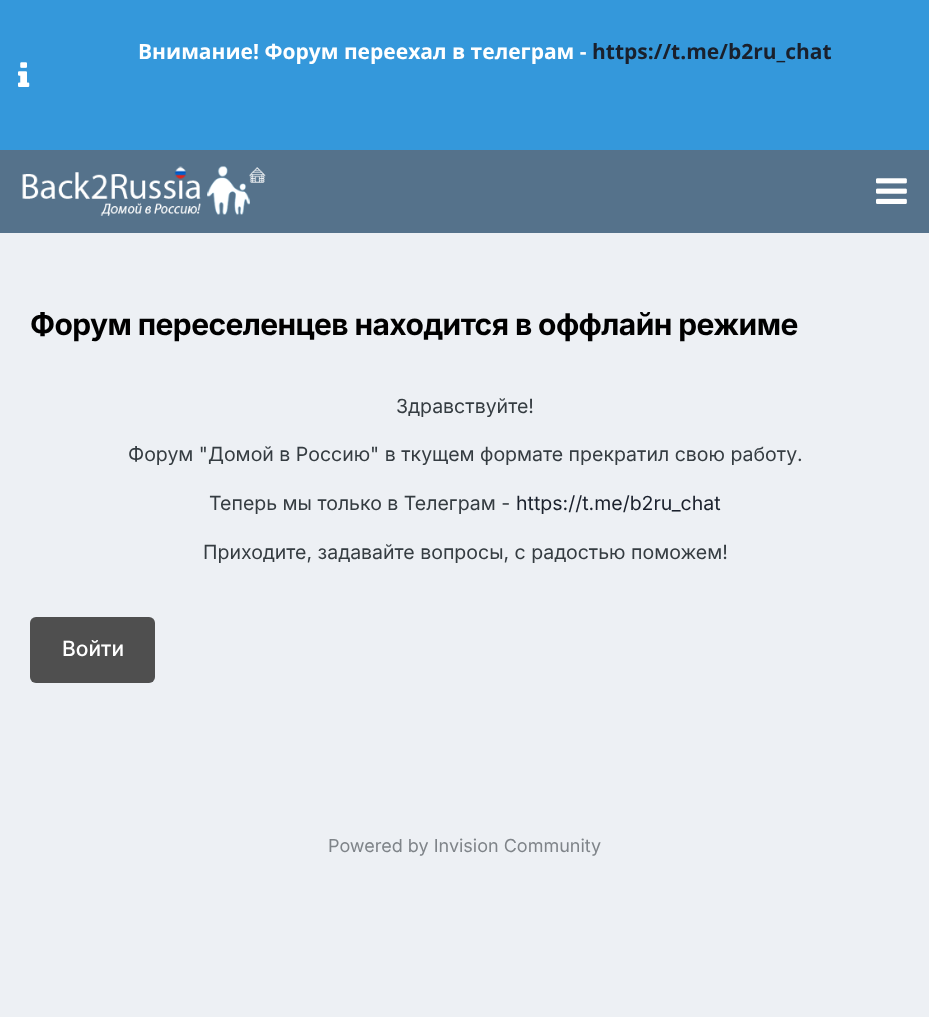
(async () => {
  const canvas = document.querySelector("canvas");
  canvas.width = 929;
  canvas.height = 1017;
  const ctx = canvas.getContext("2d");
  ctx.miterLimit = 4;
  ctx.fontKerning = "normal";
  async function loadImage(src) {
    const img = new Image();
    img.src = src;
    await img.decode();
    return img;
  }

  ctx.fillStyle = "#edf0f4";
  ctx.fillRect(0, 0, 929, 1017);
  ctx.fillStyle = "#3498db";
  ctx.fillRect(0, 0, 929, 150);
  ctx.drawImage(await loadImage("img/1.png"), 18, 62, 12, 25);
  ctx.fillStyle = "#55728b";
  ctx.fillRect(0, 150, 929, 83);
  ctx.drawImage(await loadImage("img/2.png"), 22, 166, 244, 50);
  ctx.drawImage(await loadImage("img/3.png"), 876, 178, 31, 26);
  ctx.fillStyle = "#4f4f4f";
  ctx.beginPath();
  ctx.roundRect(30, 617, 125, 66, 6);
  ctx.fill();
  ctx.font = "bold 21px Open Sans";
  ctx.fillStyle = "#ffffff";
  ctx.fillText("Внимание! Форум переехал в телеграм -", 138, 59);
  ctx.fillStyle = "#1a202c";
  ctx.fillText("https://t.me/b2ru_chat", 592, 59);
  ctx.letterSpacing = "-0.6px";
  ctx.font = "bold 30px Inter";
  ctx.fillStyle = "#000000";
  ctx.fillText("Форум переселенцев находится в оффлайн режиме", 30, 335);
  ctx.letterSpacing = "0px";
  ctx.font = "19.5px Inter";
  ctx.fillStyle = "#353c41";
  for (const [text, x, y] of [
    ["Здравствуйте!", 396, 413],
    ["Форум \"Домой в Россию\" в ткущем формате прекратил свою работу.", 128, 461],
    ["Теперь мы только в Телеграм -", 209, 510],
  ]) {
    ctx.fillText(text, x, y);
  }
  ctx.fillStyle = "#1a202c";
  ctx.fillText("https://t.me/b2ru_chat", 516, 510);
  ctx.fillStyle = "#353c41";
  ctx.fillText("Приходите, задавайте вопросы, с радостью поможем!", 203, 559);
  ctx.font = "500 21px Inter";
  ctx.fillStyle = "#ffffff";
  ctx.fillText("Войти", 62, 656);
  ctx.font = "18px Inter";
  ctx.fillStyle = "#7f8489";
  ctx.fillText("Powered by Invision Community", 328, 852);
})();
